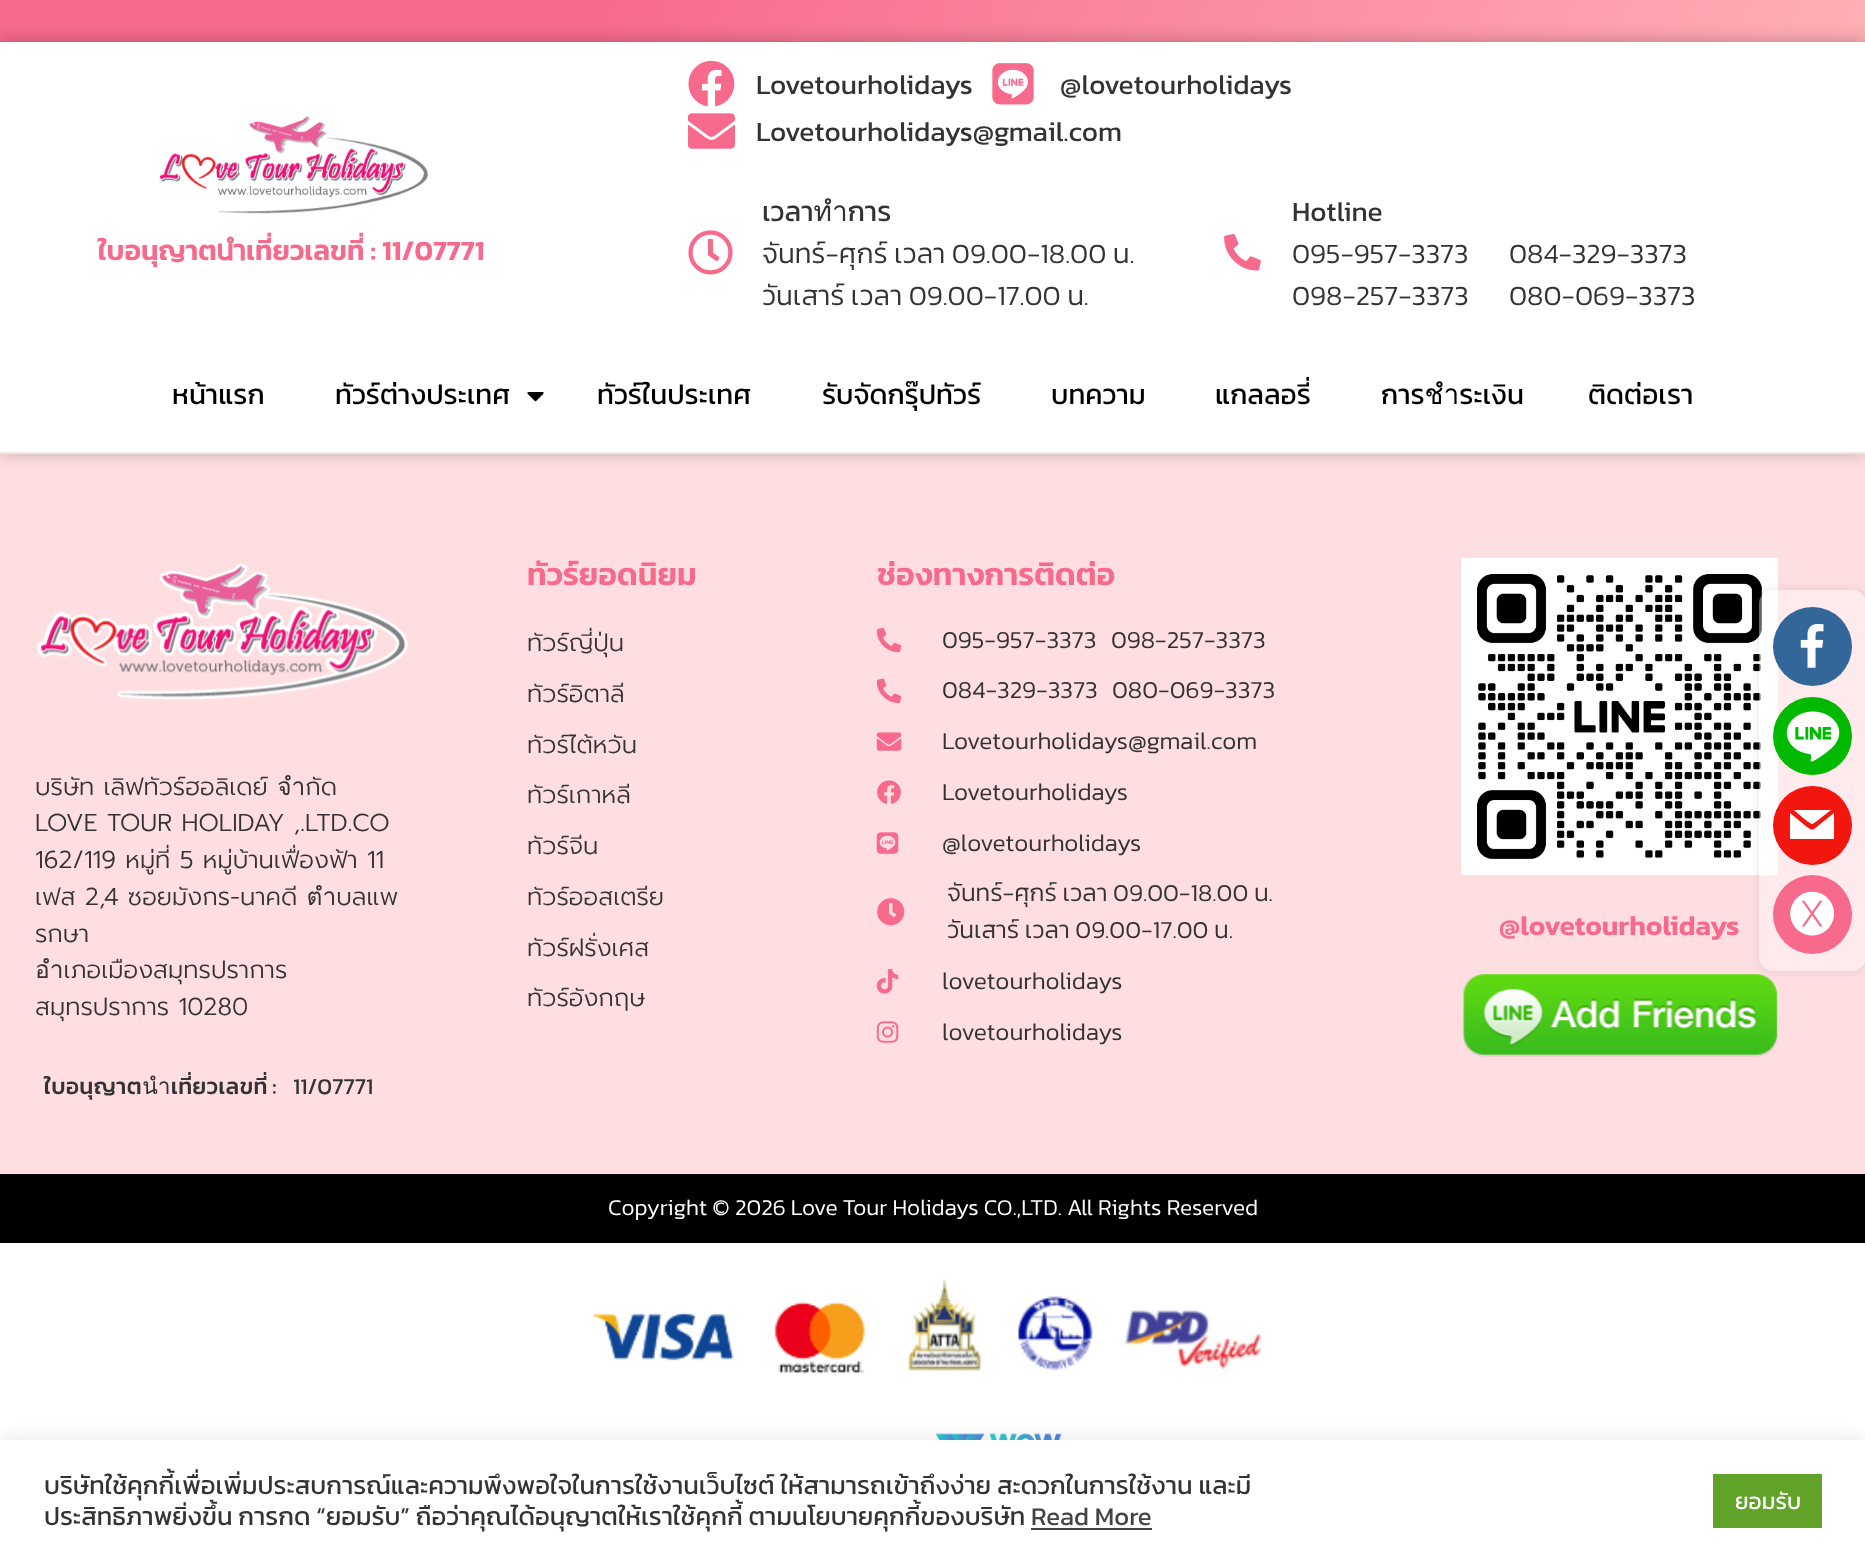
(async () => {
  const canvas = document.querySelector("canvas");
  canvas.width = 1865;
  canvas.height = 1561;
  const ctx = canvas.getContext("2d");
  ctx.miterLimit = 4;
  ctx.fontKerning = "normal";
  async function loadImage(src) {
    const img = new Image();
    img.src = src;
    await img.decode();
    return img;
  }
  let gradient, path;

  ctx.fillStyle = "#ffffff";
  ctx.fillRect(0, 0, 1865, 1561);
  gradient = ctx.createLinearGradient(224, -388, 1641, 430);
  gradient.addColorStop(0.32, "#f76a8c");
  gradient.addColorStop(1, "#ffafb6");
  ctx.fillStyle = gradient;
  ctx.fillRect(0, 0, 1865, 42);
  ctx.fillStyle = "#ffdee1";
  ctx.fillRect(0, 454, 1865, 720);
  ctx.save();
  path = new Path2D("M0 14H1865V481H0ZM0 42H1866V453H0Z");
  ctx.clip(path, "evenodd");
  ctx.fillStyle = "rgba(0, 0, 0, 0.25)";
  ctx.filter = "blur(9px)";
  ctx.beginPath();
  ctx.rect(0, 42, 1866, 411);
  ctx.fill();
  ctx.filter = "none";
  ctx.restore();
  ctx.fillStyle = "#eaeaea";
  ctx.fillRect(0, 452, 1865, 2);
  ctx.drawImage(await loadImage("img/1.png"), 160, 116, 268, 98);
  ctx.drawImage(await loadImage("img/2.png"), 688, 60, 47, 47);
  ctx.drawImage(await loadImage("img/3.png"), 992, 63, 42, 42);
  ctx.drawImage(await loadImage("img/4.png"), 688, 113, 47, 36);
  ctx.drawImage(await loadImage("img/5.png"), 688, 230, 45, 45);
  ctx.drawImage(await loadImage("img/6.png"), 1224, 233, 37, 38);
  ctx.drawImage(await loadImage("img/7.png"), 527, 392, 17, 10);
  ctx.drawImage(await loadImage("img/8.png"), 36, 563, 372, 137);
  ctx.drawImage(await loadImage("img/9.png"), 877, 627, 25, 26);
  ctx.drawImage(await loadImage("img/10.png"), 877, 678, 25, 26);
  ctx.drawImage(await loadImage("img/11.png"), 876, 732, 26, 19);
  ctx.drawImage(await loadImage("img/12.png"), 877, 780, 24, 24);
  ctx.drawImage(await loadImage("img/13.png"), 876, 832, 23, 22);
  ctx.drawImage(await loadImage("img/14.png"), 877, 898, 28, 28);
  ctx.drawImage(await loadImage("img/15.png"), 876, 969, 23, 25);
  ctx.drawImage(await loadImage("img/16.png"), 876, 1021, 23, 22);
  ctx.drawImage(await loadImage("img/17.png"), 1461, 558, 317, 317);
  ctx.drawImage(await loadImage("img/18.png"), 1462, 974, 316, 83);
  ctx.fillStyle = "#000000";
  ctx.fillRect(0, 1174, 1865, 69);
  ctx.drawImage(await loadImage("img/19.png"), 592, 1279, 670, 95);
  ctx.drawImage(await loadImage("img/20.png"), 935, 1433, 127, 7);
  ctx.save();
  path = new Path2D("M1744 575H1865V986H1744ZM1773 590H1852C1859.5 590 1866 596.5 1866 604V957C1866 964.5 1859.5 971 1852 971H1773C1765.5 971 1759 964.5 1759 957V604C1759 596.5 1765.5 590 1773 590Z");
  ctx.clip(path, "evenodd");
  ctx.fillStyle = "rgba(0, 0, 0, 0.1)";
  ctx.filter = "blur(4.5px)";
  ctx.beginPath();
  ctx.roundRect(1759, 590, 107, 381, 14);
  ctx.fill();
  ctx.filter = "none";
  ctx.restore();
  ctx.fillStyle = "rgba(255, 255, 255, 0.4)";
  ctx.beginPath();
  ctx.roundRect(1759, 590, 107, 381, 14);
  ctx.fill();
  ctx.fillStyle = "#336699";
  ctx.beginPath();
  ctx.arc(1812.5, 646.5, 39.5, 0, Math.PI * 2);
  ctx.fill();
  ctx.drawImage(await loadImage("img/21.png"), 1800, 624, 24, 44);
  ctx.fillStyle = "#00b900";
  ctx.beginPath();
  ctx.roundRect(1773, 697, 79, 78, 39);
  ctx.fill();
  ctx.drawImage(await loadImage("img/22.png"), 1786, 711, 54, 51);
  ctx.fillStyle = "#f2160f";
  ctx.beginPath();
  ctx.arc(1812.5, 825.5, 39.5, 0, Math.PI * 2);
  ctx.fill();
  ctx.fillStyle = "#ffffff";
  path = new Path2D("M1814 829C1811 831 1809 828 1807 827L1790 813V839H1834V813ZM1812 824C1814 824 1828 812 1831 810H1794C1796 812 1810 824 1812 824Z");
  ctx.fill(path);
  ctx.fillStyle = "#f76a8c";
  ctx.beginPath();
  ctx.arc(1812.5, 914.5, 39.5, 0, Math.PI * 2);
  ctx.fill();
  ctx.drawImage(await loadImage("img/23.png"), 1790, 891, 44, 45);
  ctx.fillStyle = "rgba(172, 171, 171, 0.3)";
  ctx.filter = "blur(9px)";
  ctx.beginPath();
  ctx.rect(0, 1439, 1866, 120);
  ctx.fill();
  ctx.filter = "none";
  for (const [x, y, w, h, color] of [
    [0, 1440, 1865, 121, "#ffffff"],
    [1031, 1528, 121, 2, "#444444"],
    [1713, 1474, 109, 54, "#61a229"],
  ]) {
    ctx.fillStyle = color;
    ctx.fillRect(x, y, w, h);
  }
  ctx.font = "600 28px Kanit";
  ctx.fillStyle = "#f76a8c";
  ctx.fillText("ใบอนุญาตนำเที่ยวเลขที่ : 11/07771", 98, 260);
  ctx.font = "28px Kanit";
  ctx.fillStyle = "#333333";
  for (const [text, x, y] of [
    ["Lovetourholidays", 756, 94],
    ["@lovetourholidays", 1060, 94],
    ["Lovetourholidays@gmail.com", 756, 141],
    ["เวลาทำการ", 762, 221],
  ]) {
    ctx.fillText(text, x, y);
  }
  ctx.font = "300 28px Kanit";
  ctx.fillText("จันทร์-ศุกร์ เวลา 09.00-18.00 น.", 762, 263);
  ctx.fillText("วันเสาร์ เวลา 09.00-17.00 น.", 762, 305);
  ctx.font = "28px Kanit";
  ctx.fillText("Hotline", 1292, 221);
  ctx.font = "300 28px Kanit";
  for (const [text, x, y] of [
    ["095-957-3373", 1292, 263],
    ["098-257-3373", 1292, 305],
    ["084-329-3373", 1509, 263],
    ["080-069-3373", 1509, 305],
  ]) {
    ctx.fillText(text, x, y);
  }
  ctx.font = "28px Kanit";
  ctx.fillStyle = "#000000";
  for (const [text, x, y] of [
    ["หน้าแรก", 172, 404],
    ["ทัวร์ต่างประเทศ", 335, 404],
    ["ทัวร์ในประเทศ", 597, 404],
    ["รับจัดกรุ๊ปทัวร์", 822, 404],
    ["บทความ", 1051, 404],
    ["แกลลอรี่", 1215, 404],
    ["การชำระเงิน", 1381, 404],
    ["ติดต่อเรา", 1588, 404],
  ]) {
    ctx.fillText(text, x, y);
  }
  ctx.font = "300 24.5px Prompt";
  ctx.fillStyle = "#333333";
  for (const [text, x, y] of [
    ["บริษัท เลิฟทัวร์ฮอลิเดย์ จำกัด", 35, 795],
    ["LOVE TOUR HOLIDAY ,.LTD.CO", 35, 831],
    ["162/119 หมู่ที่ 5 หมู่บ้านเฟื่องฟ้า 11", 35, 868],
    ["เฟส 2,4 ซอยมังกร-นาคดี ตำบลแพ", 35, 905],
    ["รกษา", 35, 942],
    ["อำเภอเมืองสมุทรปราการ", 35, 978],
    ["สมุทรปราการ 10280", 35, 1015],
  ]) {
    ctx.fillText(text, x, y);
  }
  ctx.letterSpacing = "0.35px";
  ctx.wordSpacing = "-1px";
  ctx.font = "500 22.75px Kanit";
  ctx.fillText("ใบอนุญาตนำเที่ยวเลขที่ :", 44, 1094);
  ctx.letterSpacing = "0px";
  ctx.wordSpacing = "0px";
  ctx.font = "22.75px Kanit";
  ctx.fillText("11/07771", 293, 1094);
  ctx.font = "600 31.5px Kanit";
  ctx.fillStyle = "#f76a8c";
  ctx.fillText("ทัวร์ยอดนิยม", 527, 585);
  ctx.font = "300 24.5px Prompt";
  ctx.fillStyle = "#333333";
  for (const [text, x, y] of [
    ["ทัวร์ญี่ปุ่น", 527, 651],
    ["ทัวร์อิตาลี", 527, 702],
    ["ทัวร์ไต้หวัน", 527, 753],
    ["ทัวร์เกาหลี", 527, 803],
    ["ทัวร์จีน", 527, 854],
    ["ทัวร์ออสเตรีย", 527, 905],
    ["ทัวร์ฝรั่งเศส", 527, 956],
    ["ทัวร์อังกฤษ", 527, 1006],
  ]) {
    ctx.fillText(text, x, y);
  }
  ctx.font = "600 31.5px Kanit";
  ctx.fillStyle = "#f76a8c";
  ctx.fillText("ช่องทางการติดต่อ", 877, 585);
  ctx.font = "300 24.5px Kanit";
  ctx.fillStyle = "#333333";
  for (const [text, x, y] of [
    ["095-957-3373", 942, 648],
    ["098-257-3373", 1111, 648],
    ["084-329-3373", 942, 698],
    ["080-069-3373", 1112, 698],
    ["Lovetourholidays@gmail.com", 942, 749],
    ["Lovetourholidays", 942, 800],
    ["@lovetourholidays", 942, 851],
    ["จันทร์-ศุกร์ เวลา 09.00-18.00 น.", 947, 901],
    ["วันเสาร์ เวลา 09.00-17.00 น.", 947, 938],
    ["lovetourholidays", 942, 989],
    ["lovetourholidays", 942, 1040],
  ]) {
    ctx.fillText(text, x, y);
  }
  ctx.font = "600 28px Kanit";
  ctx.fillStyle = "#f76a8c";
  ctx.fillText("@lovetourholidays", 1499, 935);
  ctx.font = "300 22.75px Kanit";
  ctx.fillStyle = "#ffffff";
  ctx.fillText("Copyright © 2026 Love Tour Holidays CO.,LTD. All Rights Reserved", 608, 1215);
  ctx.font = "25.65px Kanit";
  ctx.fillStyle = "#333333";
  ctx.fillText("บริษัทใช้คุกกี้เพื่อเพิ่มประสบการณ์และความพึงพอใจในการใช้งานเว็บไซต์ ให้สามารถเข้าถึงง่าย สะดวกในการใช้งาน และมี", 44, 1494);
  ctx.fillText("ประสิทธิภาพยิ่งขึ้น การกด “ยอมรับ” ถือว่าคุณได้อนุญาตให้เราใช้คุกกี้ ตามนโยบายคุกกี้ของบริษัท", 44, 1525);
  ctx.fillStyle = "#444444";
  ctx.fillText("Read More", 1031, 1525);
  ctx.font = "22.75px Kanit";
  ctx.fillStyle = "#ffffff";
  ctx.fillText("ยอมรับ", 1735, 1509);
})();
